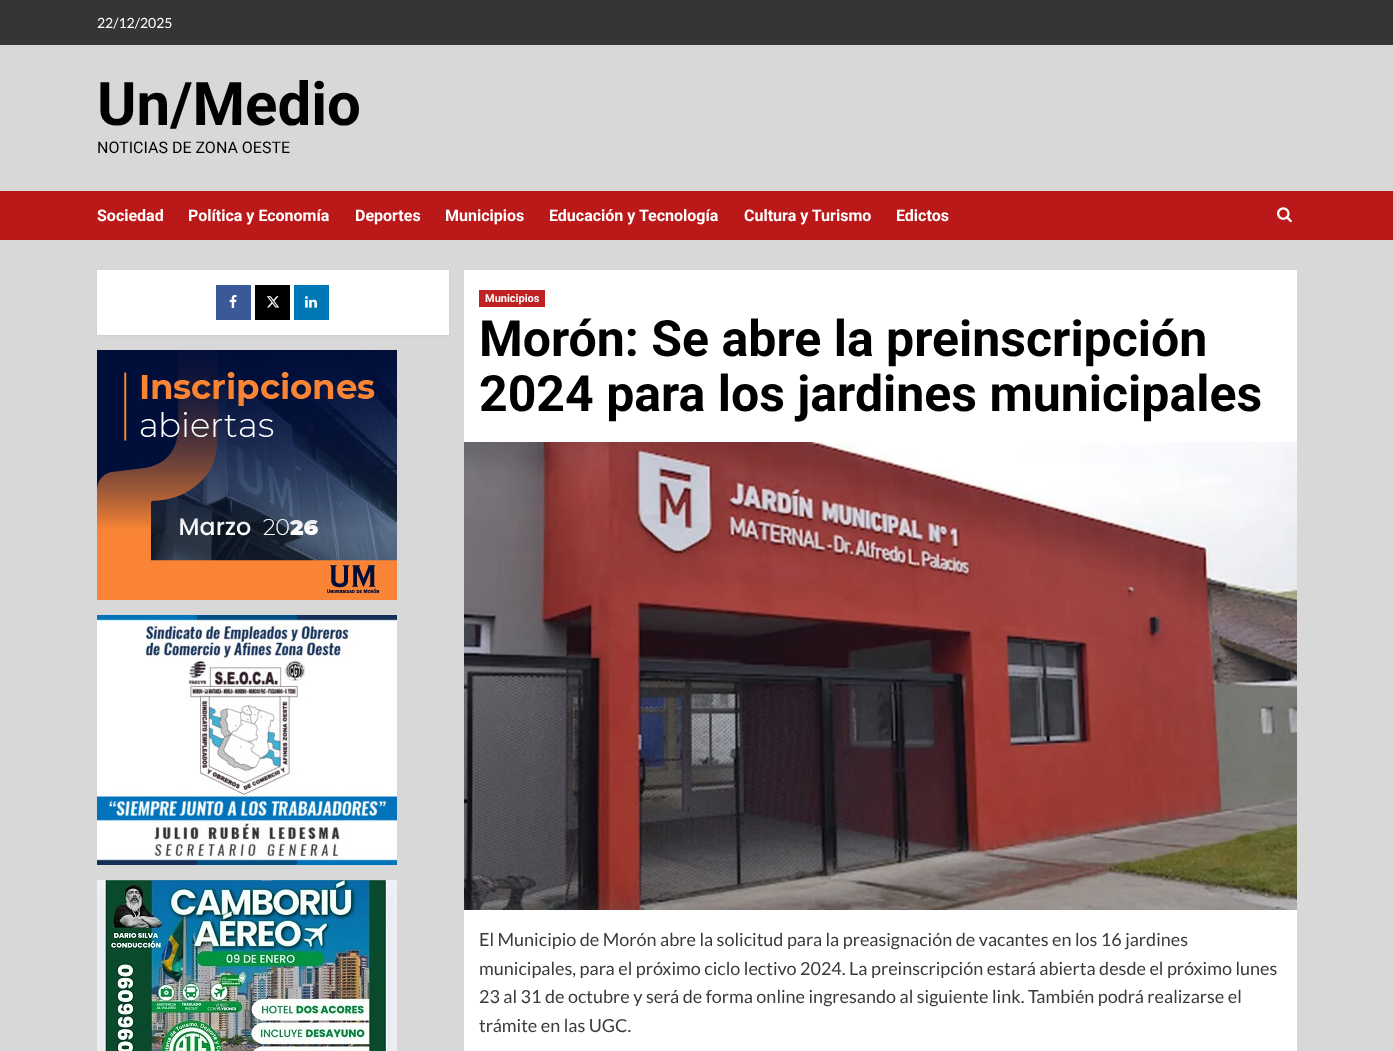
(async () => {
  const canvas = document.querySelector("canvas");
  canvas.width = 1393;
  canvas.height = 1051;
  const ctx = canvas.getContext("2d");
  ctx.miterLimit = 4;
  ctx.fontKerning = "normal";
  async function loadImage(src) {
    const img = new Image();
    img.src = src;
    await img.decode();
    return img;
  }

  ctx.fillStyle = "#d8d8d8";
  ctx.fillRect(0, 0, 1393, 1051);
  ctx.fillStyle = "#353535";
  ctx.fillRect(0, 0, 1393, 45);
  ctx.fillStyle = "#bb1919";
  ctx.fillRect(0, 191, 1393, 49);
  ctx.drawImage(await loadImage("img/1.png"), 1277, 207, 15, 16);
  ctx.fillStyle = "rgba(0, 0, 0, 0.05)";
  ctx.filter = "blur(1px)";
  ctx.beginPath();
  ctx.rect(97, 271, 352, 65);
  ctx.fill();
  ctx.filter = "none";
  ctx.fillStyle = "#ffffff";
  ctx.fillRect(97, 270, 352, 65);
  ctx.fillStyle = "#3b5999";
  ctx.fillRect(216, 285, 35, 35);
  ctx.drawImage(await loadImage("img/2.png"), 229, 295, 8, 13);
  ctx.fillStyle = "#000000";
  ctx.fillRect(255, 285, 35, 35);
  ctx.drawImage(await loadImage("img/3.png"), 266, 296, 14, 12);
  ctx.fillStyle = "#0077b5";
  ctx.fillRect(294, 285, 35, 35);
  ctx.drawImage(await loadImage("img/4.png"), 305, 296, 12, 12);
  ctx.drawImage(await loadImage("img/5.png"), 97, 350, 300, 250);
  ctx.drawImage(await loadImage("img/6.png"), 97, 615, 300, 250);
  ctx.drawImage(await loadImage("img/7.png"), 97, 880, 300, 171);
  ctx.fillStyle = "#ffffff";
  ctx.fillRect(464, 270, 833, 781);
  ctx.fillStyle = "#be2222";
  ctx.fillRect(479, 290, 66, 17);
  ctx.drawImage(await loadImage("img/8.png"), 464, 442, 833, 468);
  ctx.font = "14px Lato";
  ctx.fillStyle = "#ffffff";
  ctx.fillText("22/12/2025", 97, 28);
  ctx.font = "bold 60px Roboto";
  ctx.fillStyle = "#000000";
  ctx.fillText("Un/Medio", 97, 125);
  ctx.font = "16px Roboto";
  ctx.fillText("NOTICIAS DE ZONA OESTE", 97, 153);
  ctx.font = "bold 16px Roboto";
  ctx.fillStyle = "#ffffff";
  for (const [text, x, y] of [
    ["Sociedad", 97, 221],
    ["Política y Economía", 188, 221],
    ["Deportes", 355, 221],
    ["Municipios", 445, 221],
    ["Educación y Tecnología", 549, 221],
    ["Cultura y Turismo", 744, 221],
    ["Edictos", 896, 221],
  ]) {
    ctx.fillText(text, x, y);
  }
  ctx.font = "bold 11px Roboto";
  ctx.fillText("Municipios", 485, 302);
  ctx.font = "bold 50px Roboto";
  ctx.fillStyle = "#000000";
  ctx.fillText("Morón: Se abre la preinscripción", 479, 356);
  ctx.fillText("2024 para los jardines municipales", 479, 411);
  ctx.font = "18px Lato";
  ctx.fillStyle = "#3a3a3a";
  for (const [text, x, y] of [
    ["El Municipio de Morón abre la solicitud para la preasignación de vacantes en los 16 jardines", 479, 946],
    ["municipales, para el próximo ciclo lectivo 2024. La preinscripción estará abierta desde el próximo lunes", 479, 975],
    ["23 al 31 de octubre y será de forma online ingresando al siguiente link. También podrá realizarse el", 479, 1003],
    ["trámite en las UGC.", 479, 1032],
  ]) {
    ctx.fillText(text, x, y);
  }
})();
